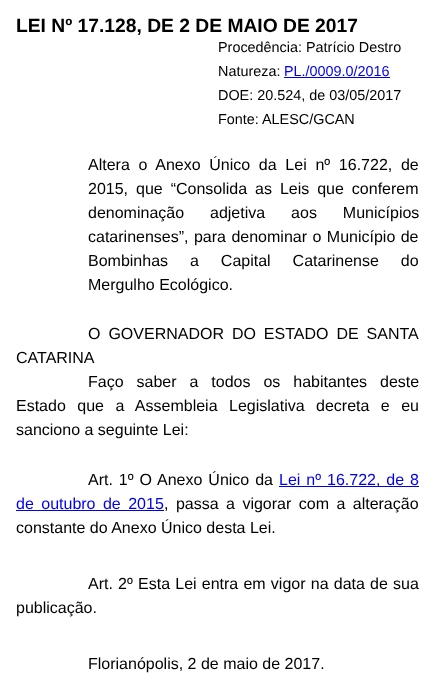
(async () => {
  const canvas = document.querySelector("canvas");
  canvas.width = 435;
  canvas.height = 690;
  const ctx = canvas.getContext("2d");
  ctx.miterLimit = 4;
  ctx.fontKerning = "normal";

  ctx.fillStyle = "#ffffff";
  ctx.fillRect(0, 0, 435, 690);
  for (const [x, y, w, h, color] of [
    [284, 77, 106, 1, "#0000ee"],
    [279, 486, 140, 1, "#0000ee"],
    [16, 510, 148, 1, "#0000ee"],
  ]) {
    ctx.fillStyle = color;
    ctx.fillRect(x, y, w, h);
  }
  ctx.font = "bold 19.25px Liberation Sans";
  ctx.fillStyle = "#000000";
  ctx.fillText("LEI Nº 17.128, DE 2 DE MAIO DE 2017", 16, 32);
  ctx.font = "14.4px Liberation Sans";
  ctx.fillText("Procedência: Patrício Destro", 218, 52);
  ctx.fillText("Natureza:", 218, 76);
  ctx.fillStyle = "#0000ee";
  ctx.fillText("PL./0009.0/2016", 284, 76);
  ctx.fillStyle = "#000000";
  ctx.fillText("DOE: 20.524, de 03/05/2017", 218, 100);
  ctx.fillText("Fonte: ALESC/GCAN", 218, 124);
  ctx.wordSpacing = "4.25px";
  ctx.font = "16px Liberation Sans";
  ctx.fillText("Altera o Anexo Único da Lei nº 16.722, de", 88, 170);
  ctx.wordSpacing = "3.5px";
  ctx.fillText("2015, que “Consolida as Leis que conferem", 88, 194);
  ctx.wordSpacing = "21.5px";
  ctx.fillText("denominação adjetiva aos Municípios", 88, 218);
  ctx.wordSpacing = "1px";
  ctx.fillText("catarinenses”, para denominar o Município de", 88, 242);
  ctx.wordSpacing = "17.5px";
  ctx.fillText("Bombinhas a Capital Catarinense do", 88, 266);
  ctx.wordSpacing = "0px";
  ctx.fillText("Mergulho Ecológico.", 88, 290);
  ctx.wordSpacing = "3.5px";
  ctx.fillText("O GOVERNADOR DO ESTADO DE SANTA", 88, 339);
  ctx.wordSpacing = "0px";
  ctx.fillText("CATARINA", 16, 363);
  ctx.wordSpacing = "8.5px";
  ctx.fillText("Faço saber a todos os habitantes deste", 88, 387);
  ctx.wordSpacing = "7px";
  ctx.fillText("Estado que a Assembleia Legislativa decreta e eu", 16, 411);
  ctx.wordSpacing = "0px";
  ctx.fillText("sanciono a seguinte Lei:", 16, 435);
  ctx.wordSpacing = "1.5px";
  ctx.fillText("Art. 1º O Anexo Único da", 88, 485);
  ctx.fillStyle = "#0000ee";
  ctx.fillText("Lei nº 16.722, de 8", 279, 485);
  ctx.wordSpacing = "3px";
  ctx.fillText("de outubro de 2015", 16, 509);
  ctx.fillStyle = "#000000";
  ctx.fillText(", passa a vigorar com a alteração", 164, 509);
  ctx.wordSpacing = "0px";
  ctx.fillText("constante do Anexo Único desta Lei.", 16, 533);
  ctx.wordSpacing = "0.75px";
  ctx.fillText("Art. 2º Esta Lei entra em vigor na data de sua", 88, 589);
  ctx.wordSpacing = "0px";
  ctx.fillText("publicação.", 16, 613);
  ctx.fillText("Florianópolis, 2 de maio de 2017.", 88, 669);
})();
